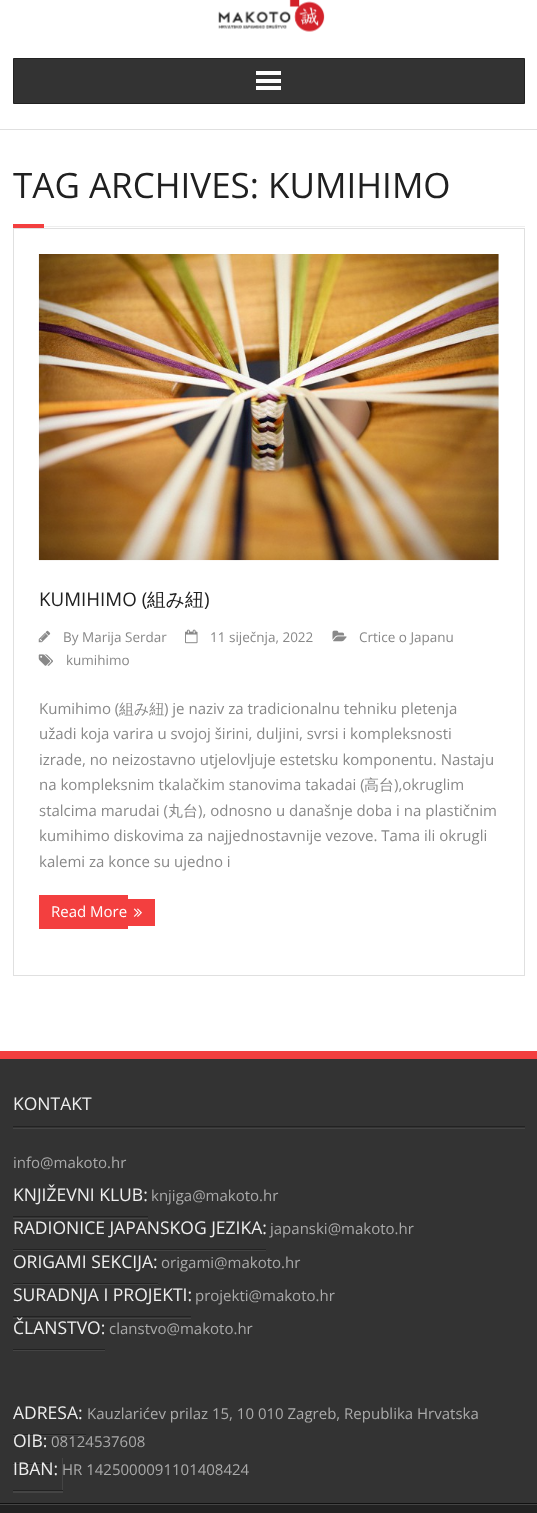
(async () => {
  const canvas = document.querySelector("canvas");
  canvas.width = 537;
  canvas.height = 1513;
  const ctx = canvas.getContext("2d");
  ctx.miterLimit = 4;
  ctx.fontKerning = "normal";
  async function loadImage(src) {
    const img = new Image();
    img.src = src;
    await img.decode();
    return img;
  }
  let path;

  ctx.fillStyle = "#ffffff";
  ctx.fillRect(0, 0, 537, 1513);
  ctx.fillStyle = "#e0e0e0";
  ctx.fillRect(0, 129, 537, 1);
  ctx.drawImage(await loadImage("img/1.png"), 218, 0, 107, 32);
  ctx.fillStyle = "#333333";
  ctx.beginPath();
  ctx.rect(13.5, 58.5, 511, 45);
  ctx.fill();
  ctx.strokeStyle = "#222222";
  ctx.stroke();
  for (const [x, y, w, h, color] of [
    [256, 71, 25, 4, "#ffffff"],
    [256, 79, 25, 4, "#ffffff"],
    [256, 86, 25, 4, "#ffffff"],
    [13, 224, 31, 4, "#f33f3f"],
    [44, 226, 481, 1, "#eeeeee"],
  ]) {
    ctx.fillStyle = color;
    ctx.fillRect(x, y, w, h);
  }
  ctx.strokeStyle = "#e0e0e0";
  ctx.strokeRect(13.5, 228.5, 511, 747);
  ctx.drawImage(await loadImage("img/2.png"), 38, 254, 461, 307);
  ctx.drawImage(await loadImage("img/3.png"), 38, 630, 13, 13);
  ctx.drawImage(await loadImage("img/4.png"), 185, 629, 13, 15);
  ctx.drawImage(await loadImage("img/5.png"), 332, 630, 15, 12);
  ctx.drawImage(await loadImage("img/6.png"), 38, 654, 15, 12);
  ctx.fillStyle = "#f33f3f";
  ctx.fillRect(39, 895, 89, 34);
  ctx.fillRect(128, 899, 27, 27);
  ctx.drawImage(await loadImage("img/7.png"), 133, 908, 9, 9);
  for (const [x, y, w, h, color] of [
    [0, 1059, 537, 444, "#333333"],
    [0, 1051, 537, 8, "#f33f3f"],
    [0, 1503, 537, 1, "#111111"],
    [13, 1128, 512, 1, "#444444"],
    [13, 1126, 512, 1, "#222222"],
  ]) {
    ctx.fillStyle = color;
    ctx.fillRect(x, y, w, h);
  }
  ctx.fillStyle = "#444444";
  path = new Path2D("M13 1218V1219H148V1184V1218Z");
  ctx.fill(path);
  for (const [x, y, w, h, color] of [
    [13, 1216, 135, 1, "#222222"],
    [13, 1250, 253, 1, "#444444"],
    [13, 1249, 253, 1, "#222222"],
  ]) {
    ctx.fillStyle = color;
    ctx.fillRect(x, y, w, h);
  }
  ctx.fillStyle = "#444444";
  path = new Path2D("M13 1284V1285H158V1250V1284Z");
  ctx.fill(path);
  for (const [x, y, w, h, color] of [
    [13, 1283, 145, 1, "#222222"],
    [13, 1318, 178, 1, "#444444"],
    [13, 1316, 178, 1, "#222222"],
    [13, 1350, 92, 1, "#444444"],
    [13, 1349, 92, 1, "#222222"],
    [13, 1435, 73, 1, "#444444"],
    [13, 1434, 73, 1, "#222222"],
    [13, 1464, 38, 1, "#444444"],
    [13, 1463, 38, 1, "#222222"],
  ]) {
    ctx.fillStyle = color;
    ctx.fillRect(x, y, w, h);
  }
  ctx.fillStyle = "#444444";
  path = new Path2D("M13 1491V1493H63V1458H62V1491Z");
  ctx.fill(path);
  for (const [x, y, w, h, color] of [
    [13, 1490, 50, 1, "#222222"],
    [0, 1505, 537, 8, "#222222"],
    [0, 1504, 537, 1, "#444444"],
  ]) {
    ctx.fillStyle = color;
    ctx.fillRect(x, y, w, h);
  }
  ctx.font = "35px Open Sans";
  ctx.fillStyle = "#202020";
  ctx.fillText("TAG ARCHIVES: KUMIHIMO", 13, 198);
  ctx.font = "18.75px Open Sans";
  ctx.fillText("KUMIHIMO (", 39, 606);
  ctx.font = "500 18.75px WenQuanYi Zen Hei";
  ctx.fillText("組み紐", 147, 606);
  ctx.font = "18.75px Open Sans";
  ctx.fillText(")", 204, 606);
  ctx.font = "13.5px Open Sans";
  ctx.fillStyle = "#888888";
  for (const [text, x, y] of [
    ["By Marija Serdar", 63, 642],
    ["11 siječnja, 2022", 210, 642],
    ["Crtice o Japanu", 359, 642],
    ["kumihimo", 66, 665],
  ]) {
    ctx.fillText(text, x, y);
  }
  ctx.font = "15px Open Sans";
  ctx.fillText("Kumihimo (", 39, 714);
  ctx.font = "500 15px WenQuanYi Zen Hei";
  ctx.fillText("組み紐", 119, 714);
  ctx.font = "15px Open Sans";
  for (const [text, x, y] of [
    [") je naziv za tradicionalnu tehniku pletenja", 164, 714],
    ["užadi koja varira u svojoj širini, duljini, svrsi i kompleksnosti", 39, 739],
    ["izrade, no neizostavno utjelovljuje estetsku komponentu. Nastaju", 39, 765],
    ["na kompleksnim tkalačkim stanovima takadai (", 39, 790],
  ]) {
    ctx.fillText(text, x, y);
  }
  ctx.font = "500 15px WenQuanYi Zen Hei";
  ctx.fillText("高台", 364, 790);
  ctx.font = "15px Open Sans";
  ctx.fillText("),okruglim", 394, 790);
  ctx.fillText("stalcima marudai (", 39, 816);
  ctx.font = "500 15px WenQuanYi Zen Hei";
  ctx.fillText("丸台", 168, 816);
  ctx.font = "15px Open Sans";
  for (const [text, x, y] of [
    ["), odnosno u današnje doba i na plastičnim", 198, 816],
    ["kumihimo diskovima za najjednostavnije vezove. Tama ili okrugli", 39, 841],
    ["kalemi za konce su ujedno i", 39, 867],
  ]) {
    ctx.fillText(text, x, y);
  }
  ctx.fillStyle = "#ffffff";
  ctx.fillText("Read More", 51, 917);
  ctx.font = "17.5px Open Sans";
  ctx.fillStyle = "#eeeeee";
  ctx.fillText("KONTAKT", 13, 1110);
  ctx.font = "15px Open Sans";
  ctx.fillStyle = "#aaaaaa";
  ctx.fillText("info@makoto.hr", 13, 1168);
  ctx.font = "17.5px Open Sans";
  ctx.fillStyle = "#eeeeee";
  ctx.fillText("KNJIŽEVNI KLUB:", 13, 1201);
  ctx.font = "15px Open Sans";
  ctx.fillStyle = "#aaaaaa";
  ctx.fillText("knjiga@makoto.hr", 151, 1201);
  ctx.font = "17.5px Open Sans";
  ctx.fillStyle = "#eeeeee";
  ctx.fillText("RADIONICE JAPANSKOG JEZIKA:", 13, 1234);
  ctx.font = "15px Open Sans";
  ctx.fillStyle = "#aaaaaa";
  ctx.fillText("japanski@makoto.hr", 270, 1234);
  ctx.font = "17.5px Open Sans";
  ctx.fillStyle = "#eeeeee";
  ctx.fillText("ORIGAMI SEKCIJA:", 13, 1268);
  ctx.font = "15px Open Sans";
  ctx.fillStyle = "#aaaaaa";
  ctx.fillText("origami@makoto.hr", 161, 1268);
  ctx.font = "17.5px Open Sans";
  ctx.fillStyle = "#eeeeee";
  ctx.fillText("SURADNJA I PROJEKTI:", 13, 1301);
  ctx.font = "15px Open Sans";
  ctx.fillStyle = "#aaaaaa";
  ctx.fillText("projekti@makoto.hr", 195, 1301);
  ctx.font = "17.5px Open Sans";
  ctx.fillStyle = "#eeeeee";
  ctx.fillText("ČLANSTVO:", 13, 1334);
  ctx.font = "15px Open Sans";
  ctx.fillStyle = "#aaaaaa";
  ctx.fillText("clanstvo@makoto.hr", 109, 1334);
  ctx.font = "17.5px Open Sans";
  ctx.fillStyle = "#eeeeee";
  ctx.fillText("ADRESA:", 13, 1419);
  ctx.font = "15px Open Sans";
  ctx.fillStyle = "#aaaaaa";
  ctx.fillText("Kauzlarićev prilaz 15, 10 010 Zagreb, Republika Hrvatska", 87, 1419);
  ctx.font = "17.5px Open Sans";
  ctx.fillStyle = "#eeeeee";
  ctx.fillText("OIB:", 13, 1447);
  ctx.font = "15px Open Sans";
  ctx.fillStyle = "#aaaaaa";
  ctx.fillText("08124537608", 51, 1447);
  ctx.font = "17.5px Open Sans";
  ctx.fillStyle = "#eeeeee";
  ctx.fillText("IBAN:", 13, 1475);
  ctx.font = "15px Open Sans";
  ctx.fillStyle = "#aaaaaa";
  ctx.fillText("HR 1425000091101408424", 62, 1475);
})();
